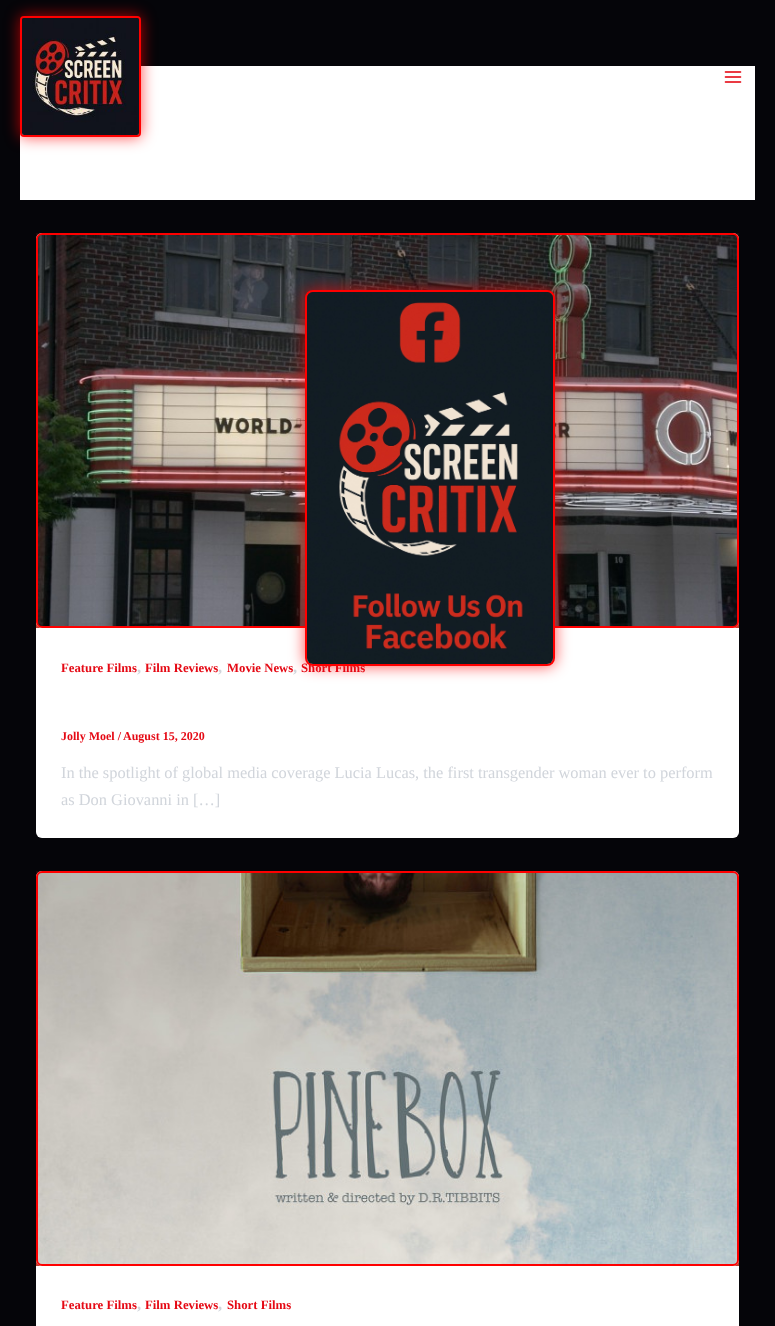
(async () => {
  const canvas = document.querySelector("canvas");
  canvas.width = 775;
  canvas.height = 1326;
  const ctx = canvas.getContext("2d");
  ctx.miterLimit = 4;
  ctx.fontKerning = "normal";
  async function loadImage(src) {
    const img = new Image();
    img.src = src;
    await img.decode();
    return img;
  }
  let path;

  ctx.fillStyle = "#050509";
  ctx.fillRect(0, 0, 775, 1326);
  ctx.fillStyle = "#ffffff";
  ctx.beginPath();
  ctx.roundRect(36, 233, 703, 605, 6);
  ctx.fill();
  ctx.fillRect(20, 66, 735, 134);
  ctx.save();
  ctx.beginPath();
  ctx.rect(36, 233, 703, 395);
  ctx.clip();
  ctx.fillStyle = "rgba(194, 58, 44, 0.45)";
  ctx.filter = "blur(15px)";
  ctx.beginPath();
  ctx.roundRect(36, 233, 703, 395, 6);
  ctx.fill();
  ctx.filter = "none";
  ctx.restore();
  ctx.fillStyle = "#ff0000";
  path = new Path2D("M42 233H733C736 233 739 236 739 239V622C739 625 736 628 733 628H42C39 628 36 625 36 622V239C36 236 39 233 42 233Z");
  ctx.fill(path);
  ctx.drawImage(await loadImage("img/4.png"), 38, 235, 699, 391);
  ctx.save();
  ctx.beginPath();
  ctx.rect(36, 233, 703, 395);
  ctx.clip();
  ctx.fillStyle = "#c23a2c";
  path = new Path2D("M42 628C39 628 36 625 36 622V630C38 631 40 632 42 632H735L739 630V622C739 625 736 628 733 628Z");
  ctx.fill(path);
  ctx.restore();
  ctx.fillStyle = "rgba(255, 0, 0, 0.7)";
  ctx.filter = "blur(7.5px)";
  ctx.beginPath();
  ctx.roundRect(305, 290, 250, 376, 8);
  ctx.fill();
  ctx.filter = "none";
  ctx.filter = "blur(7.5px)";
  ctx.beginPath();
  ctx.roundRect(20, 16, 121, 121, 4);
  ctx.fill();
  ctx.filter = "none";
  ctx.beginPath();
  ctx.roundRect(21, 17, 119, 119, 3);
  ctx.strokeStyle = "#ff0000";
  ctx.lineWidth = 2;
  ctx.stroke();
  ctx.drawImage(await loadImage("img/2.png"), 22, 18, 117, 117);
  ctx.drawImage(await loadImage("img/3.png"), 724, 71, 18, 12);
  ctx.fillStyle = "#ffffff";
  ctx.beginPath();
  ctx.roundRect(36, 871, 703, 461, 6);
  ctx.fill();
  ctx.save();
  ctx.beginPath();
  ctx.rect(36, 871, 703, 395);
  ctx.clip();
  ctx.fillStyle = "rgba(194, 58, 44, 0.45)";
  ctx.filter = "blur(15px)";
  ctx.beginPath();
  ctx.roundRect(36, 871, 703, 395, 6);
  ctx.fill();
  ctx.filter = "none";
  ctx.restore();
  ctx.fillStyle = "#ff0000";
  path = new Path2D("M42 871H733C736 871 739 874 739 877V1260C739 1263 736 1266 733 1266H42C39 1266 36 1263 36 1260V877C36 874 39 871 42 871Z");
  ctx.fill(path);
  ctx.drawImage(await loadImage("img/5.png"), 38, 873, 699, 391);
  ctx.save();
  ctx.beginPath();
  ctx.rect(36, 871, 703, 395);
  ctx.clip();
  ctx.fillStyle = "#c23a2c";
  path = new Path2D("M42 1266C39 1266 36 1263 36 1260V1268C38 1269 40 1270 42 1270H735L739 1268V1260C739 1263 736 1266 733 1266Z");
  ctx.fill(path);
  ctx.restore();
  ctx.font = "bold 12.75px Liberation Serif";
  ctx.fillStyle = "#e50914";
  ctx.fillText("Feature Films", 61, 672);
  ctx.font = "bold 16.4px Liberation Serif";
  ctx.fillStyle = "#d1d5db";
  ctx.fillText(",", 137, 672);
  ctx.font = "bold 12.75px Liberation Serif";
  ctx.fillStyle = "#e50914";
  ctx.fillText("Film Reviews", 145, 672);
  ctx.font = "bold 16.4px Liberation Serif";
  ctx.fillStyle = "#d1d5db";
  ctx.fillText(",", 218, 672);
  ctx.font = "bold 12.75px Liberation Serif";
  ctx.fillStyle = "#e50914";
  ctx.fillText("Movie News", 227, 672);
  ctx.font = "bold 16.4px Liberation Serif";
  ctx.fillStyle = "#d1d5db";
  ctx.fillText(",", 293, 672);
  ctx.font = "bold 12.75px Liberation Serif";
  ctx.fillStyle = "#e50914";
  ctx.fillText("Short Films", 301, 672);
  ctx.beginPath();
  ctx.roundRect(306, 291, 248, 374, 7);
  ctx.stroke();
  ctx.drawImage(await loadImage("img/1.png"), 307, 292, 246, 372);
  ctx.font = "bold 12px Liberation Serif";
  ctx.fillText("Jolly Moel /", 61, 740);
  ctx.fillText("August 15, 2020", 123, 740);
  ctx.font = "16.4px Liberation Serif";
  ctx.fillStyle = "#d1d5db";
  ctx.fillText("In the spotlight of global media coverage Lucia Lucas, the first transgender woman ever to perform", 61, 778);
  ctx.fillText("as Don Giovanni in […]", 61, 805);
  ctx.font = "bold 12.75px Liberation Serif";
  ctx.fillStyle = "#e50914";
  ctx.fillText("Feature Films", 61, 1309);
  ctx.font = "bold 16.4px Liberation Serif";
  ctx.fillStyle = "#d1d5db";
  ctx.fillText(",", 137, 1309);
  ctx.font = "bold 12.75px Liberation Serif";
  ctx.fillStyle = "#e50914";
  ctx.fillText("Film Reviews", 145, 1309);
  ctx.font = "bold 16.4px Liberation Serif";
  ctx.fillStyle = "#d1d5db";
  ctx.fillText(",", 218, 1309);
  ctx.font = "bold 12.75px Liberation Serif";
  ctx.fillStyle = "#e50914";
  ctx.fillText("Short Films", 227, 1309);
})();
